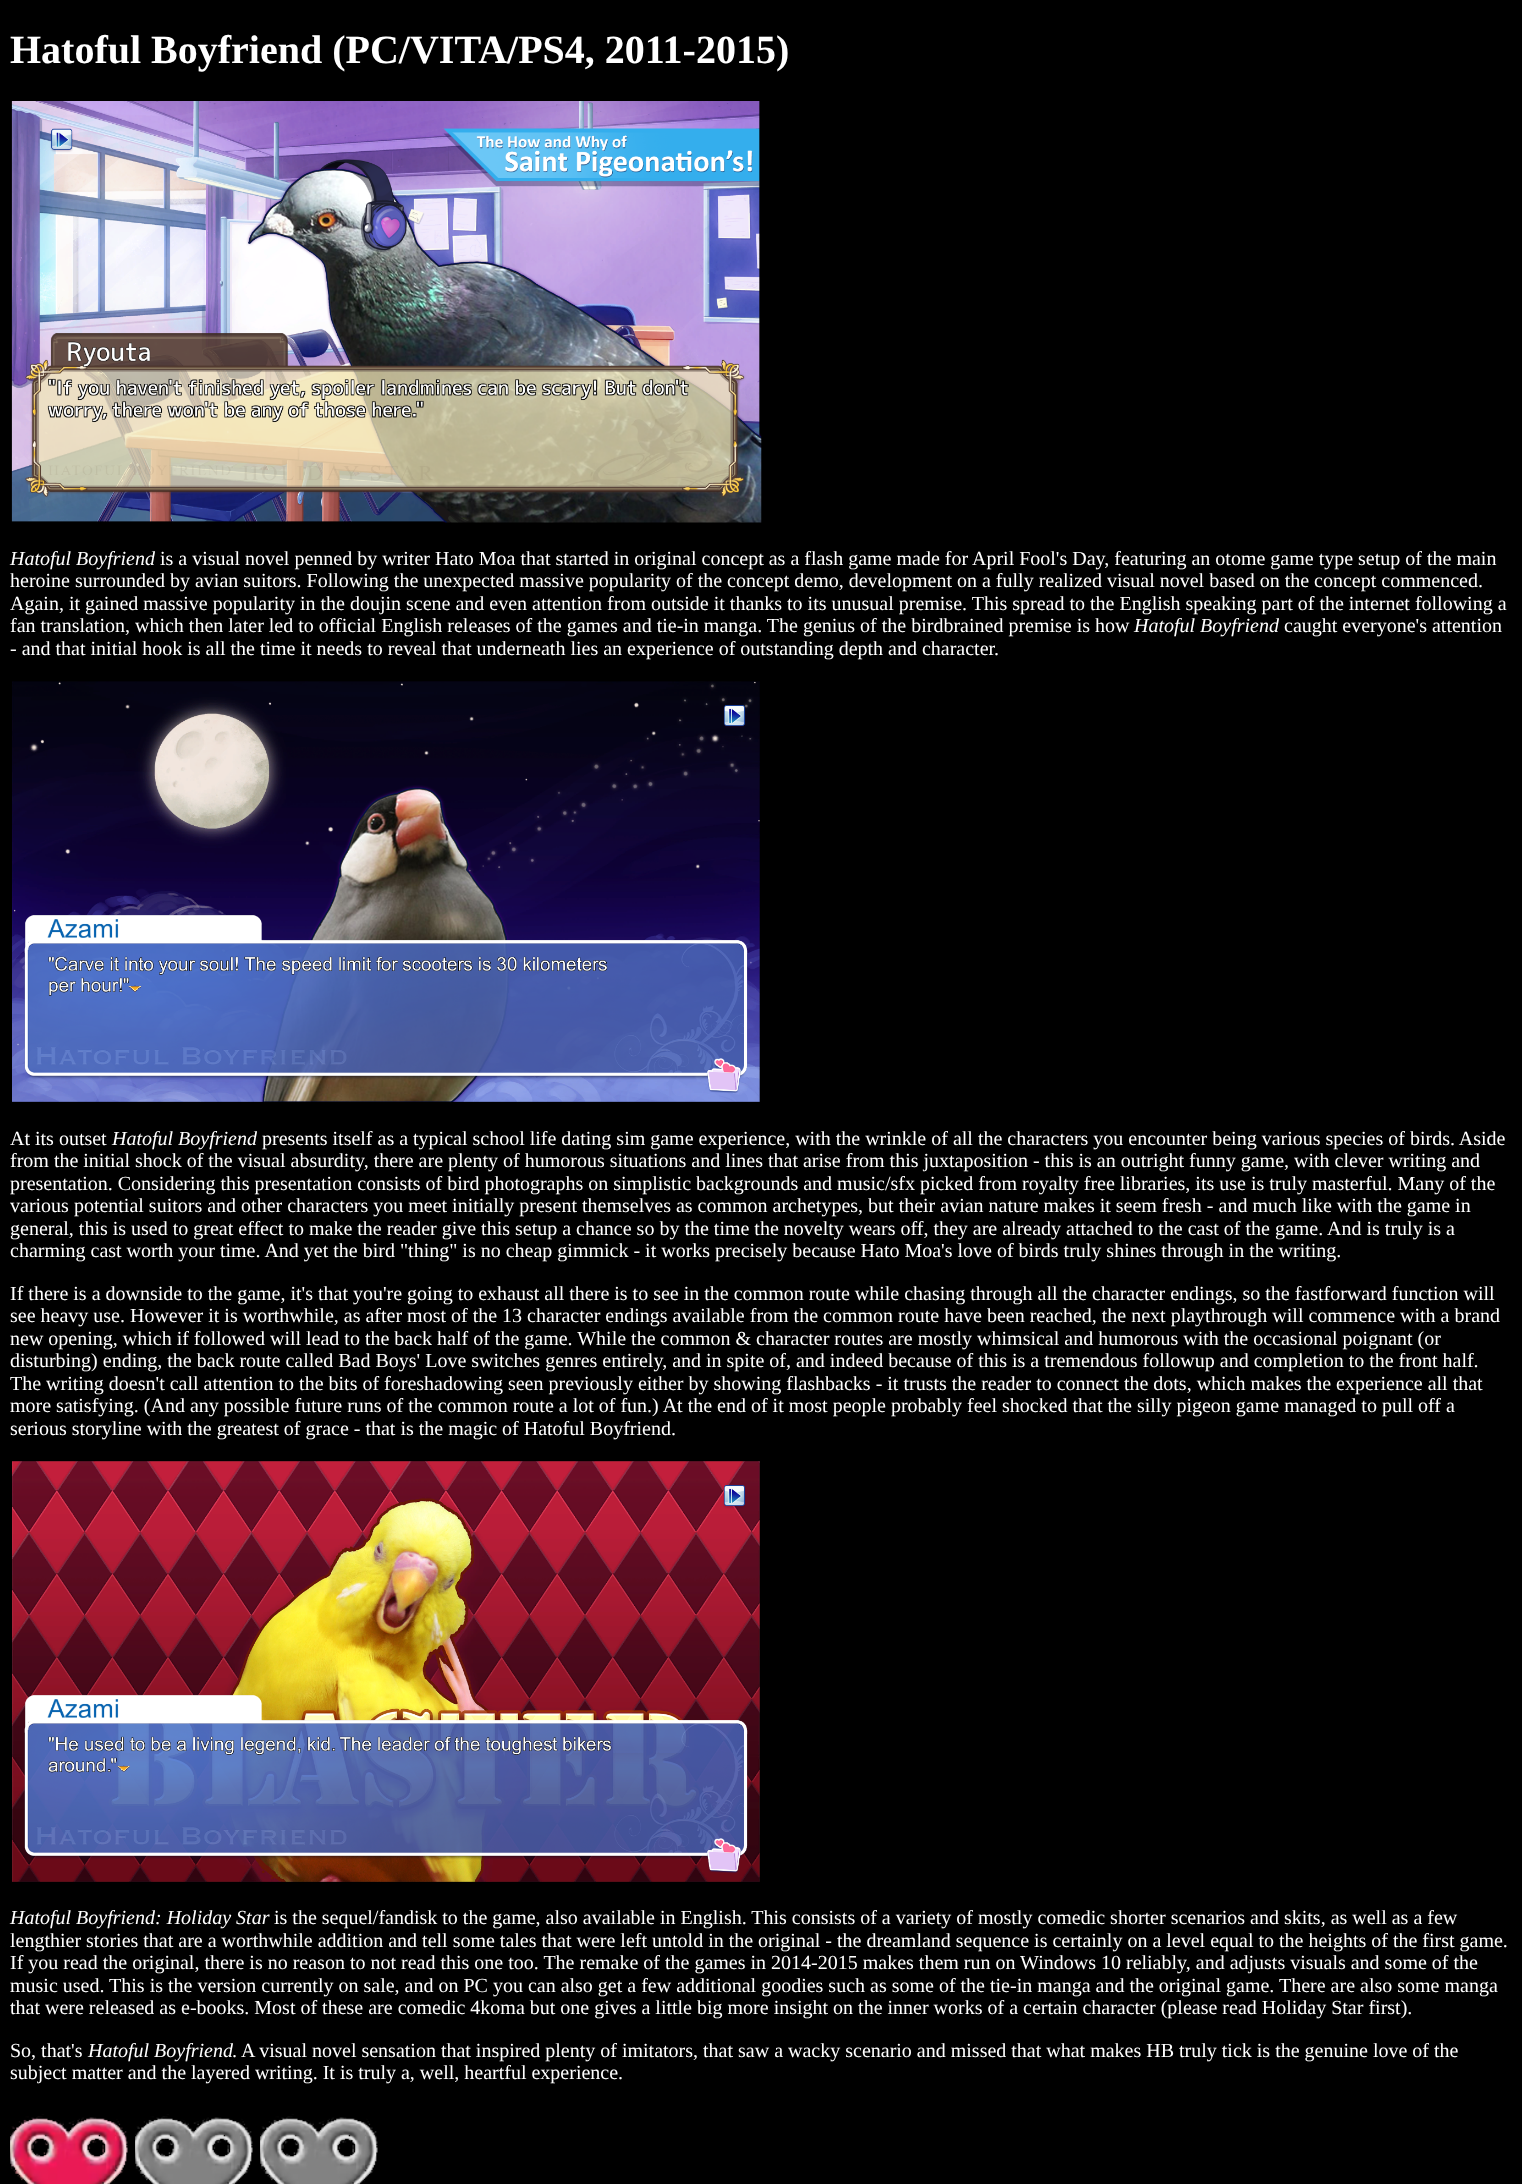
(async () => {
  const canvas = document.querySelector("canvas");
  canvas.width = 1522;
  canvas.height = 2184;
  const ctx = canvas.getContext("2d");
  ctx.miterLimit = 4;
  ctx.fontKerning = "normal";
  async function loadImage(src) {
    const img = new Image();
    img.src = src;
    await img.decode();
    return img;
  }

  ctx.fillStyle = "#000000";
  ctx.fillRect(0, 0, 1522, 2184);
  ctx.drawImage(await loadImage("img/1.png"), 11, 101, 751, 422);
  ctx.drawImage(await loadImage("img/2.png"), 12, 681, 748, 421);
  ctx.drawImage(await loadImage("img/3.png"), 12, 1461, 748, 421);
  ctx.drawImage(await loadImage("img/4.png"), 10, 2114, 118, 70);
  ctx.drawImage(await loadImage("img/5.png"), 135, 2114, 118, 70);
  ctx.drawImage(await loadImage("img/5.png"), 260, 2114, 118, 70);
  ctx.font = "bold 40px Liberation Serif";
  ctx.fillStyle = "#ffffff";
  ctx.fillText("Hatoful Boyfriend (PC/VITA/PS4, 2011-2015)", 10, 63);
  ctx.font = "italic 20px Liberation Serif";
  ctx.fillText("Hatoful Boyfriend", 10, 565);
  ctx.font = "20px Liberation Serif";
  for (const [text, x, y] of [
    ["is a visual novel penned by writer Hato Moa that started in original concept as a flash game made for April Fool's Day, featuring an otome game type setup of the main", 160, 565],
    ["heroine surrounded by avian suitors. Following the unexpected massive popularity of the concept demo, development on a fully realized visual novel based on the concept commenced.", 10, 587],
    ["Again, it gained massive popularity in the doujin scene and even attention from outside it thanks to its unusual premise. This spread to the English speaking part of the internet following a", 10, 610],
    ["fan translation, which then later led to official English releases of the games and tie-in manga. The genius of the birdbrained premise is how", 10, 632],
  ]) {
    ctx.fillText(text, x, y);
  }
  ctx.font = "italic 20px Liberation Serif";
  ctx.fillText("Hatoful Boyfriend", 1134, 632);
  ctx.font = "20px Liberation Serif";
  for (const [text, x, y] of [
    ["caught everyone's attention", 1284, 632],
    ["- and that initial hook is all the time it needs to reveal that underneath lies an experience of outstanding depth and character.", 10, 655],
    ["At its outset", 10, 1145],
  ]) {
    ctx.fillText(text, x, y);
  }
  ctx.font = "italic 20px Liberation Serif";
  ctx.fillText("Hatoful Boyfriend", 112, 1145);
  ctx.font = "20px Liberation Serif";
  for (const [text, x, y] of [
    ["presents itself as a typical school life dating sim game experience, with the wrinkle of all the characters you encounter being various species of birds. Aside", 262, 1145],
    ["from the initial shock of the visual absurdity, there are plenty of humorous situations and lines that arise from this juxtaposition - this is an outright funny game, with clever writing and", 10, 1167],
    ["presentation. Considering this presentation consists of bird photographs on simplistic backgrounds and music/sfx picked from royalty free libraries, its use is truly masterful. Many of the", 10, 1190],
    ["various potential suitors and other characters you meet initially present themselves as common archetypes, but their avian nature makes it seem fresh - and much like with the game in", 10, 1212],
    ["general, this is used to great effect to make the reader give this setup a chance so by the time the novelty wears off, they are already attached to the cast of the game. And is truly is a", 10, 1235],
    ["charming cast worth your time. And yet the bird \"thing\" is no cheap gimmick - it works precisely because Hato Moa's love of birds truly shines through in the writing.", 10, 1257],
    ["If there is a downside to the game, it's that you're going to exhaust all there is to see in the common route while chasing through all the character endings, so the fastforward function will", 10, 1300],
    ["see heavy use. However it is worthwhile, as after most of the 13 character endings available from the common route have been reached, the next playthrough will commence with a brand", 10, 1322],
    ["new opening, which if followed will lead to the back half of the game. While the common & character routes are mostly whimsical and humorous with the occasional poignant (or", 10, 1345],
    ["disturbing) ending, the back route called Bad Boys' Love switches genres entirely, and in spite of, and indeed because of this is a tremendous followup and completion to the front half.", 10, 1367],
    ["The writing doesn't call attention to the bits of foreshadowing seen previously either by showing flashbacks - it trusts the reader to connect the dots, which makes the experience all that", 10, 1390],
    ["more satisfying. (And any possible future runs of the common route a lot of fun.) At the end of it most people probably feel shocked that the silly pigeon game managed to pull off a", 10, 1412],
    ["serious storyline with the greatest of grace - that is the magic of Hatoful Boyfriend.", 10, 1435],
  ]) {
    ctx.fillText(text, x, y);
  }
  ctx.font = "italic 20px Liberation Serif";
  ctx.fillText("Hatoful Boyfriend: Holiday Star", 10, 1924);
  ctx.font = "20px Liberation Serif";
  for (const [text, x, y] of [
    ["is the sequel/fandisk to the game, also available in English. This consists of a variety of mostly comedic shorter scenarios and skits, as well as a few", 274, 1924],
    ["lengthier stories that are a worthwhile addition and tell some tales that were left untold in the original - the dreamland sequence is certainly on a level equal to the heights of the first game.", 10, 1947],
    ["If you read the original, there is no reason to not read this one too. The remake of the games in 2014-2015 makes them run on Windows 10 reliably, and adjusts visuals and some of the", 10, 1969],
    ["music used. This is the version currently on sale, and on PC you can also get a few additional goodies such as some of the tie-in manga and the original game. There are also some manga", 10, 1992],
    ["that were released as e-books. Most of these are comedic 4koma but one gives a little big more insight on the inner works of a certain character (please read Holiday Star first).", 10, 2014],
    ["So, that's", 10, 2057],
  ]) {
    ctx.fillText(text, x, y);
  }
  ctx.font = "italic 20px Liberation Serif";
  ctx.fillText("Hatoful Boyfriend", 88, 2057);
  ctx.font = "20px Liberation Serif";
  ctx.fillText(". A visual novel sensation that inspired plenty of imitators, that saw a wacky scenario and missed that what makes HB truly tick is the genuine love of the", 232, 2057);
  ctx.fillText("subject matter and the layered writing. It is truly a, well, heartful experience.", 10, 2079);
})();
